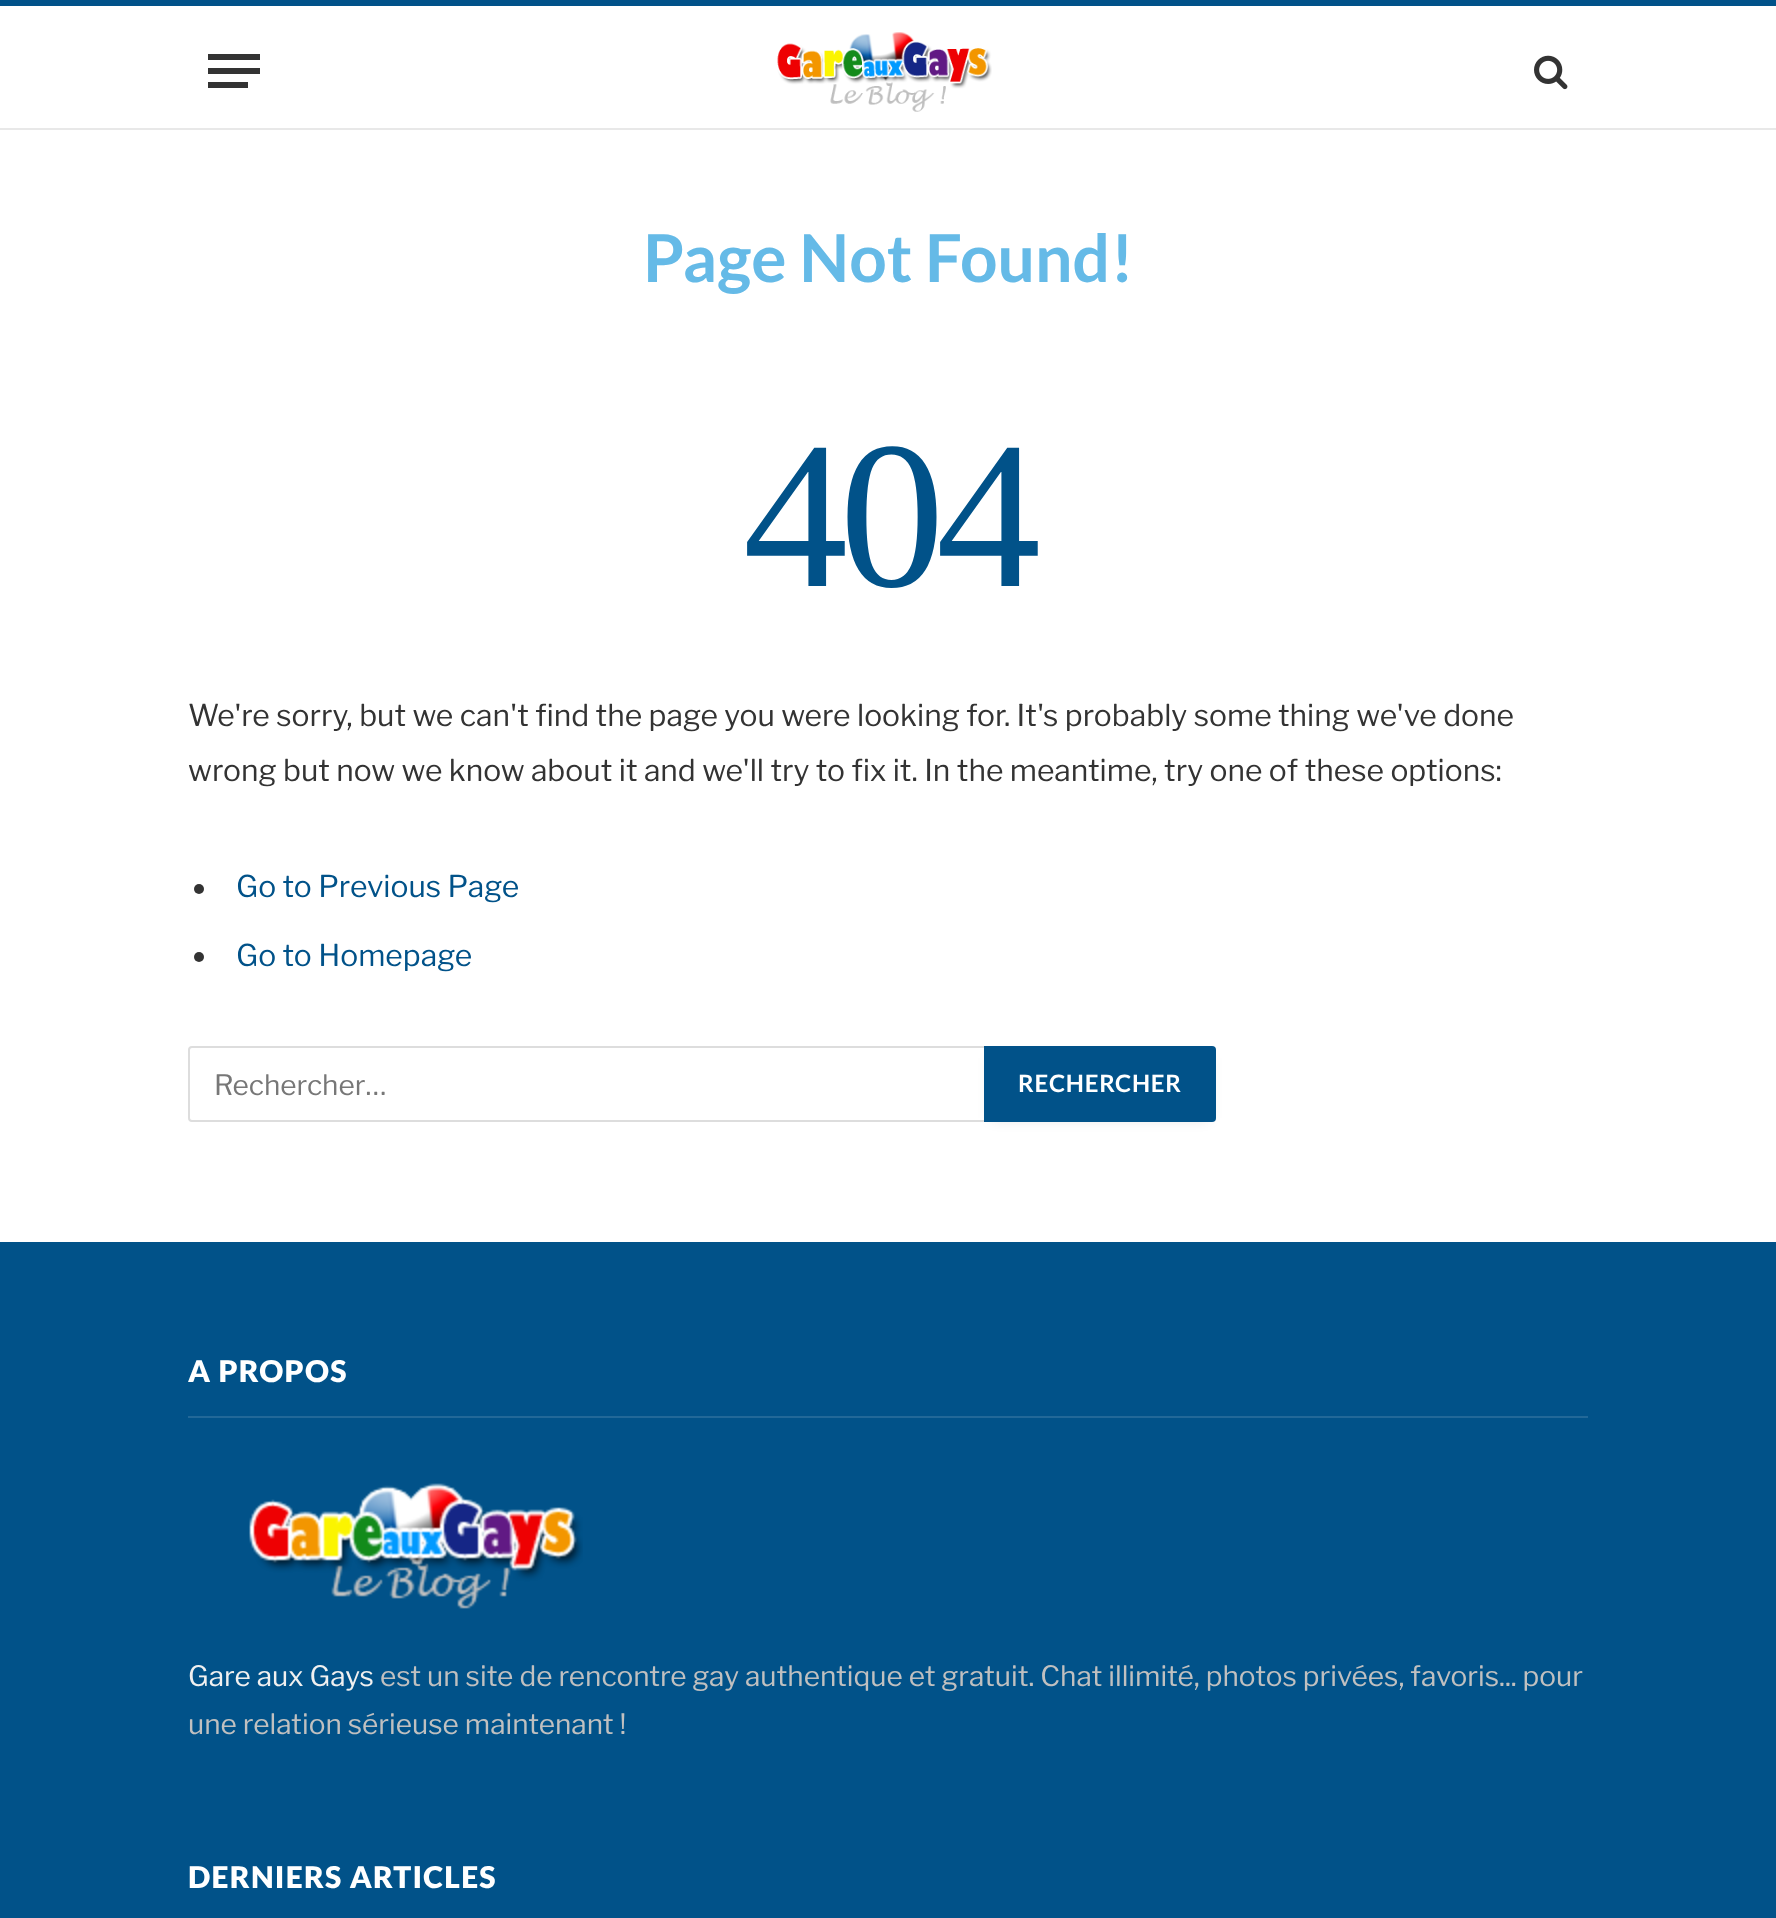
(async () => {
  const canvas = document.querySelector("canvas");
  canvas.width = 1776;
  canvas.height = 1918;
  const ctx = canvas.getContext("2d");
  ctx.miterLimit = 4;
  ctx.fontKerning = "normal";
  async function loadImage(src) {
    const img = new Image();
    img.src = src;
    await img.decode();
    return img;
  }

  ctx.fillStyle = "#ffffff";
  ctx.fillRect(0, 0, 1776, 1918);
  for (const [x, y, w, h, color] of [
    [0, 0, 1776, 6, "#015289"],
    [0, 128, 1776, 2, "#e8e8e8"],
    [208, 82, 40, 6, "#333333"],
    [208, 54, 52, 6, "#333333"],
    [208, 68, 52, 6, "#333333"],
  ]) {
    ctx.fillStyle = color;
    ctx.fillRect(x, y, w, h);
  }
  ctx.drawImage(await loadImage("img/1.png"), 777, 32, 215, 80);
  ctx.drawImage(await loadImage("img/2.png"), 1534, 55, 34, 35);
  ctx.beginPath();
  ctx.arc(199, 889, 5, 0, Math.PI * 2);
  ctx.fill();
  ctx.beginPath();
  ctx.arc(199, 957, 5, 0, Math.PI * 2);
  ctx.fill();
  ctx.beginPath();
  ctx.roundRect(189, 1047, 798, 74, 3);
  ctx.strokeStyle = "#dddddd";
  ctx.lineWidth = 2;
  ctx.stroke();
  ctx.fillStyle = "rgba(0, 0, 0, 0.16)";
  ctx.filter = "blur(7px)";
  ctx.beginPath();
  ctx.rect(992, 1058, 216, 60);
  ctx.fill();
  ctx.filter = "none";
  ctx.fillStyle = "#015289";
  ctx.beginPath();
  ctx.roundRect(984, 1046, 232, 76, [0, 4, 4, 0]);
  ctx.fill();
  ctx.fillRect(0, 1242, 1776, 676);
  ctx.fillStyle = "#226898";
  ctx.fillRect(188, 1416, 1400, 2);
  ctx.drawImage(await loadImage("img/3.png"), 249, 1483, 334, 126);
  ctx.font = "bold 66px Lato";
  ctx.fillStyle = "#65bae7";
  ctx.fillText("Page Not Found!", 643, 282);
  ctx.letterSpacing = "-8.5px";
  ctx.font = "210px Liberation Serif";
  ctx.fillStyle = "#015289";
  ctx.fillText("404", 743, 586);
  ctx.letterSpacing = "0px";
  ctx.font = "30px Libre Franklin";
  ctx.fillStyle = "#333333";
  ctx.fillText("We're sorry, but we can't find the page you were looking for. It's probably some thing we've done", 188, 726);
  ctx.fillText("wrong but now we know about it and we'll try to fix it. In the meantime, try one of these options:", 188, 781);
  ctx.fillStyle = "#015289";
  ctx.fillText("Go to Previous Page", 236, 897);
  ctx.fillText("Go to Homepage", 236, 966);
  ctx.font = "28px Libre Franklin";
  ctx.fillStyle = "#777777";
  ctx.fillText("Rechercher…", 214, 1095);
  ctx.letterSpacing = "0.75px";
  ctx.font = "bold 24px Lato";
  ctx.fillStyle = "#ffffff";
  ctx.fillText("RECHERCHER", 1018, 1092);
  ctx.letterSpacing = "1.25px";
  ctx.font = "900 30px Lato";
  ctx.fillText("A PROPOS", 188, 1382);
  ctx.letterSpacing = "0px";
  ctx.font = "28px Libre Franklin";
  ctx.fillStyle = "#f0f0f0";
  ctx.fillText("Gare aux Gays", 188, 1686);
  ctx.fillStyle = "#c0c0c0";
  ctx.fillText("est un site de rencontre gay authentique et gratuit. Chat illimité, photos privées, favoris... pour", 380, 1686);
  ctx.fillText("une relation sérieuse maintenant !", 188, 1734);
  ctx.letterSpacing = "1.25px";
  ctx.font = "900 30px Lato";
  ctx.fillStyle = "#ffffff";
  ctx.fillText("DERNIERS ARTICLES", 188, 1888);
})();
